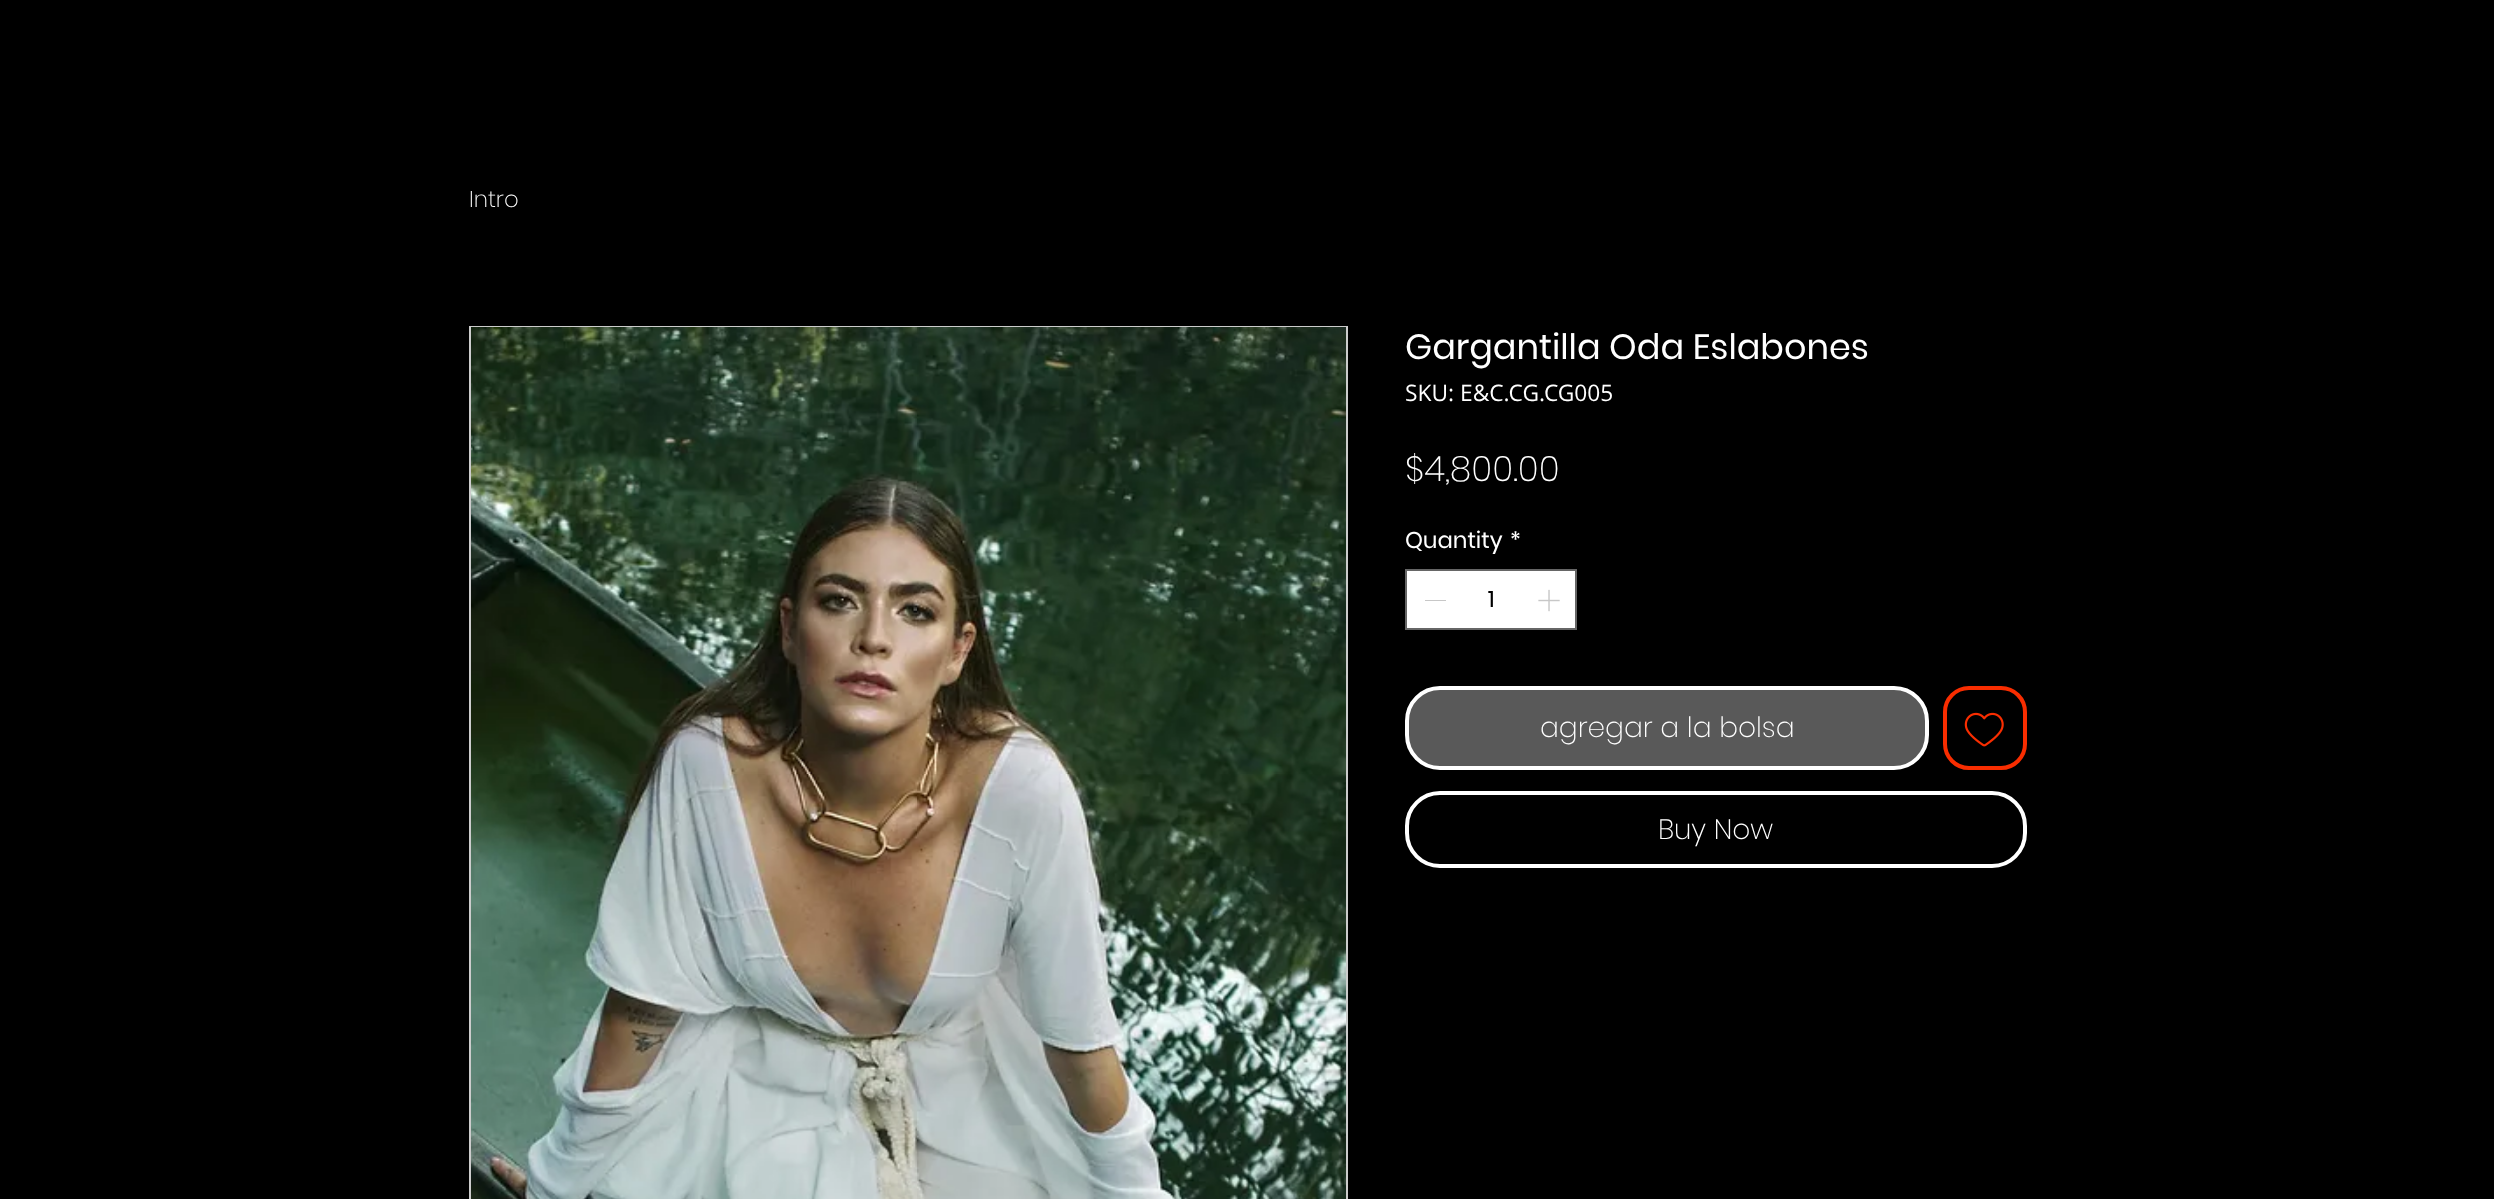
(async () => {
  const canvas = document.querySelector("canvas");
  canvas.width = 2494;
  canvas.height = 1199;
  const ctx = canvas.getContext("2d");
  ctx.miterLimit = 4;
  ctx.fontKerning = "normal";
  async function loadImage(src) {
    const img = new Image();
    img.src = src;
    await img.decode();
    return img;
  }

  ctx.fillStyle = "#000000";
  ctx.fillRect(0, 0, 2494, 1199);
  ctx.strokeStyle = "#cccccc";
  ctx.lineWidth = 2;
  ctx.strokeRect(470, 327, 877, 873);
  ctx.drawImage(await loadImage("img/1.png"), 471, 327, 875, 872);
  ctx.fillStyle = "#ffffff";
  ctx.beginPath();
  ctx.rect(1406, 570, 170, 59);
  ctx.fill();
  ctx.strokeStyle = "#666666";
  ctx.stroke();
  ctx.fillStyle = "#c7c7c7";
  ctx.fillRect(1425, 600, 21, 1);
  ctx.drawImage(await loadImage("img/2.png"), 1538, 589, 22, 23);
  ctx.fillStyle = "#595959";
  ctx.beginPath();
  ctx.roundRect(1407, 688, 520, 80, 33);
  ctx.fill();
  ctx.strokeStyle = "#ffffff";
  ctx.lineWidth = 4;
  ctx.stroke();
  ctx.beginPath();
  ctx.roundRect(1945, 688, 80, 80, 24);
  ctx.strokeStyle = "#f92d00";
  ctx.stroke();
  ctx.drawImage(await loadImage("img/3.png"), 1964, 712, 40, 35);
  ctx.beginPath();
  ctx.roundRect(1407, 793, 618, 73, 33);
  ctx.strokeStyle = "#ffffff";
  ctx.stroke();
  ctx.font = "200 22.75px Poppins";
  ctx.fillStyle = "#ffffff";
  ctx.fillText("Intro", 469, 207);
  ctx.font = "35px Poppins";
  ctx.fillText("Gargantilla Oda Eslabones", 1405, 359);
  ctx.font = "22.75px Open Sans";
  ctx.fillText("SKU: E&C.CG.CG005", 1405, 401);
  ctx.font = "200 35px Poppins";
  ctx.fillText("$4,800.00", 1405, 481);
  ctx.font = "22.75px Poppins";
  ctx.fillText("Quantity", 1405, 548);
  ctx.fillText("*", 1510, 548);
  ctx.fillStyle = "#000000";
  ctx.fillText("1", 1488, 607);
  ctx.font = "200 28px Poppins";
  ctx.fillStyle = "#ffffff";
  ctx.fillText("agregar a la bolsa", 1540, 737);
  ctx.fillText("Buy Now", 1658, 839);
})();
